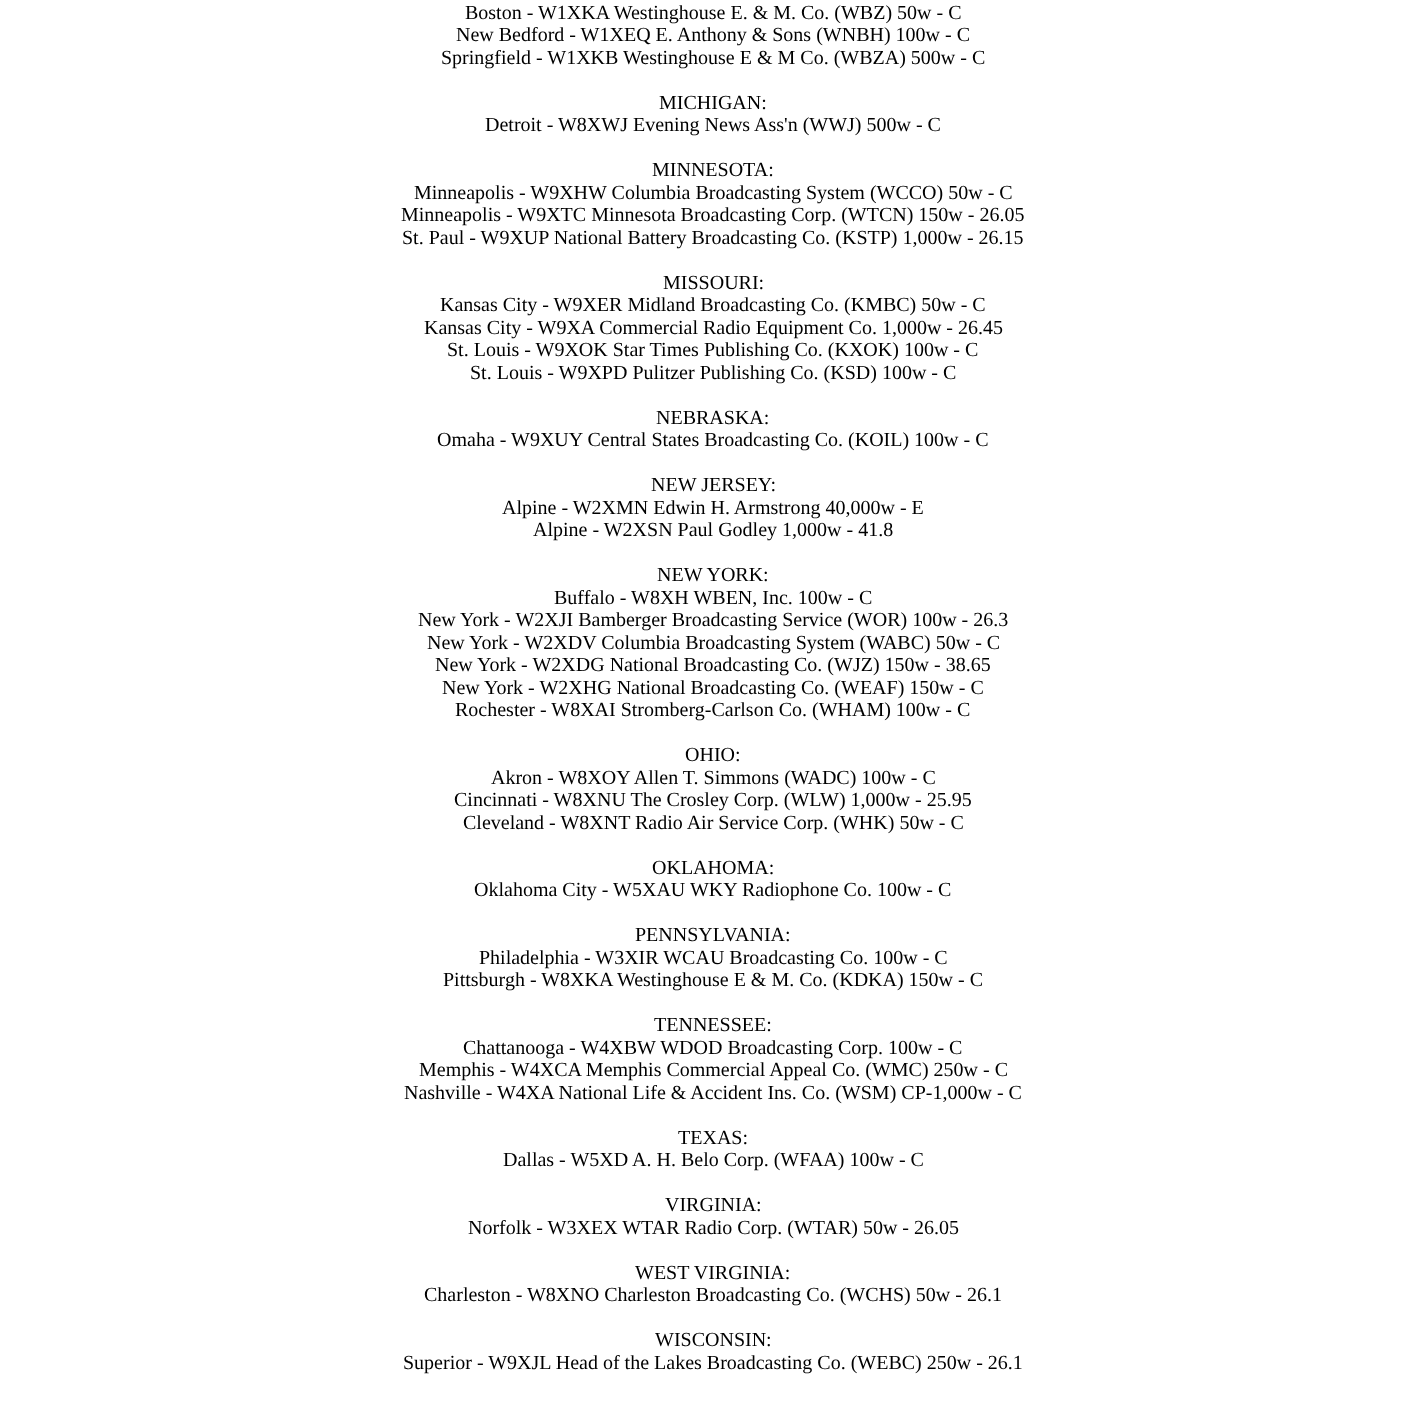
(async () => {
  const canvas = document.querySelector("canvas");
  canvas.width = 1426;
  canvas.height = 1426;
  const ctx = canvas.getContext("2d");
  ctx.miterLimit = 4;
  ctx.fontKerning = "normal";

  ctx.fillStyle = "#ffffff";
  ctx.fillRect(0, 0, 1426, 1426);
  ctx.font = "20px Liberation Serif";
  ctx.fillStyle = "#000000";
  for (const [text, x, y] of [
    ["Boston - W1XKA Westinghouse E. & M. Co. (WBZ) 50w - C", 465, 19],
    ["New Bedford - W1XEQ E. Anthony & Sons (WNBH) 100w - C", 456, 41],
    ["Springfield - W1XKB Westinghouse E & M Co. (WBZA) 500w - C", 441, 64],
    ["MICHIGAN:", 659, 109],
    ["Detroit - W8XWJ Evening News Ass'n (WWJ) 500w - C", 485, 131],
    ["MINNESOTA:", 652, 176],
    ["Minneapolis - W9XHW Columbia Broadcasting System (WCCO) 50w - C", 414, 199],
    ["Minneapolis - W9XTC Minnesota Broadcasting Corp. (WTCN) 150w - 26.05", 401, 221],
    ["St. Paul - W9XUP National Battery Broadcasting Co. (KSTP) 1,000w - 26.15", 402, 244],
    ["MISSOURI:", 663, 289],
    ["Kansas City - W9XER Midland Broadcasting Co. (KMBC) 50w - C", 440, 311],
    ["Kansas City - W9XA Commercial Radio Equipment Co. 1,000w - 26.45", 424, 334],
    ["St. Louis - W9XOK Star Times Publishing Co. (KXOK) 100w - C", 447, 356],
    ["St. Louis - W9XPD Pulitzer Publishing Co. (KSD) 100w - C", 470, 379],
    ["NEBRASKA:", 656, 424],
    ["Omaha - W9XUY Central States Broadcasting Co. (KOIL) 100w - C", 437, 446],
    ["NEW JERSEY:", 651, 491],
    ["Alpine - W2XMN Edwin H. Armstrong 40,000w - E", 502, 514],
    ["Alpine - W2XSN Paul Godley 1,000w - 41.8", 533, 536],
    ["NEW YORK:", 657, 581],
    ["Buffalo - W8XH WBEN, Inc. 100w - C", 554, 604],
    ["New York - W2XJI Bamberger Broadcasting Service (WOR) 100w - 26.3", 418, 626],
    ["New York - W2XDV Columbia Broadcasting System (WABC) 50w - C", 427, 649],
    ["New York - W2XDG National Broadcasting Co. (WJZ) 150w - 38.65", 435, 671],
    ["New York - W2XHG National Broadcasting Co. (WEAF) 150w - C", 442, 694],
    ["Rochester - W8XAI Stromberg-Carlson Co. (WHAM) 100w - C", 455, 716],
    ["OHIO:", 685, 761],
    ["Akron - W8XOY Allen T. Simmons (WADC) 100w - C", 491, 784],
    ["Cincinnati - W8XNU The Crosley Corp. (WLW) 1,000w - 25.95", 454, 806],
    ["Cleveland - W8XNT Radio Air Service Corp. (WHK) 50w - C", 463, 829],
    ["OKLAHOMA:", 652, 874],
    ["Oklahoma City - W5XAU WKY Radiophone Co. 100w - C", 474, 896],
    ["PENNSYLVANIA:", 635, 941],
    ["Philadelphia - W3XIR WCAU Broadcasting Co. 100w - C", 479, 964],
    ["Pittsburgh - W8XKA Westinghouse E & M. Co. (KDKA) 150w - C", 443, 986],
    ["TENNESSEE:", 654, 1031],
    ["Chattanooga - W4XBW WDOD Broadcasting Corp. 100w - C", 463, 1054],
    ["Memphis - W4XCA Memphis Commercial Appeal Co. (WMC) 250w - C", 419, 1076],
    ["Nashville - W4XA National Life & Accident Ins. Co. (WSM) CP-1,000w - C", 404, 1099],
    ["TEXAS:", 678, 1144],
    ["Dallas - W5XD A. H. Belo Corp. (WFAA) 100w - C", 503, 1166],
    ["VIRGINIA:", 665, 1211],
    ["Norfolk - W3XEX WTAR Radio Corp. (WTAR) 50w - 26.05", 468, 1234],
    ["WEST VIRGINIA:", 635, 1279],
    ["Charleston - W8XNO Charleston Broadcasting Co. (WCHS) 50w - 26.1", 424, 1301],
    ["WISCONSIN:", 655, 1346],
    ["Superior - W9XJL Head of the Lakes Broadcasting Co. (WEBC) 250w - 26.1", 403, 1369],
  ]) {
    ctx.fillText(text, x, y);
  }
})();
